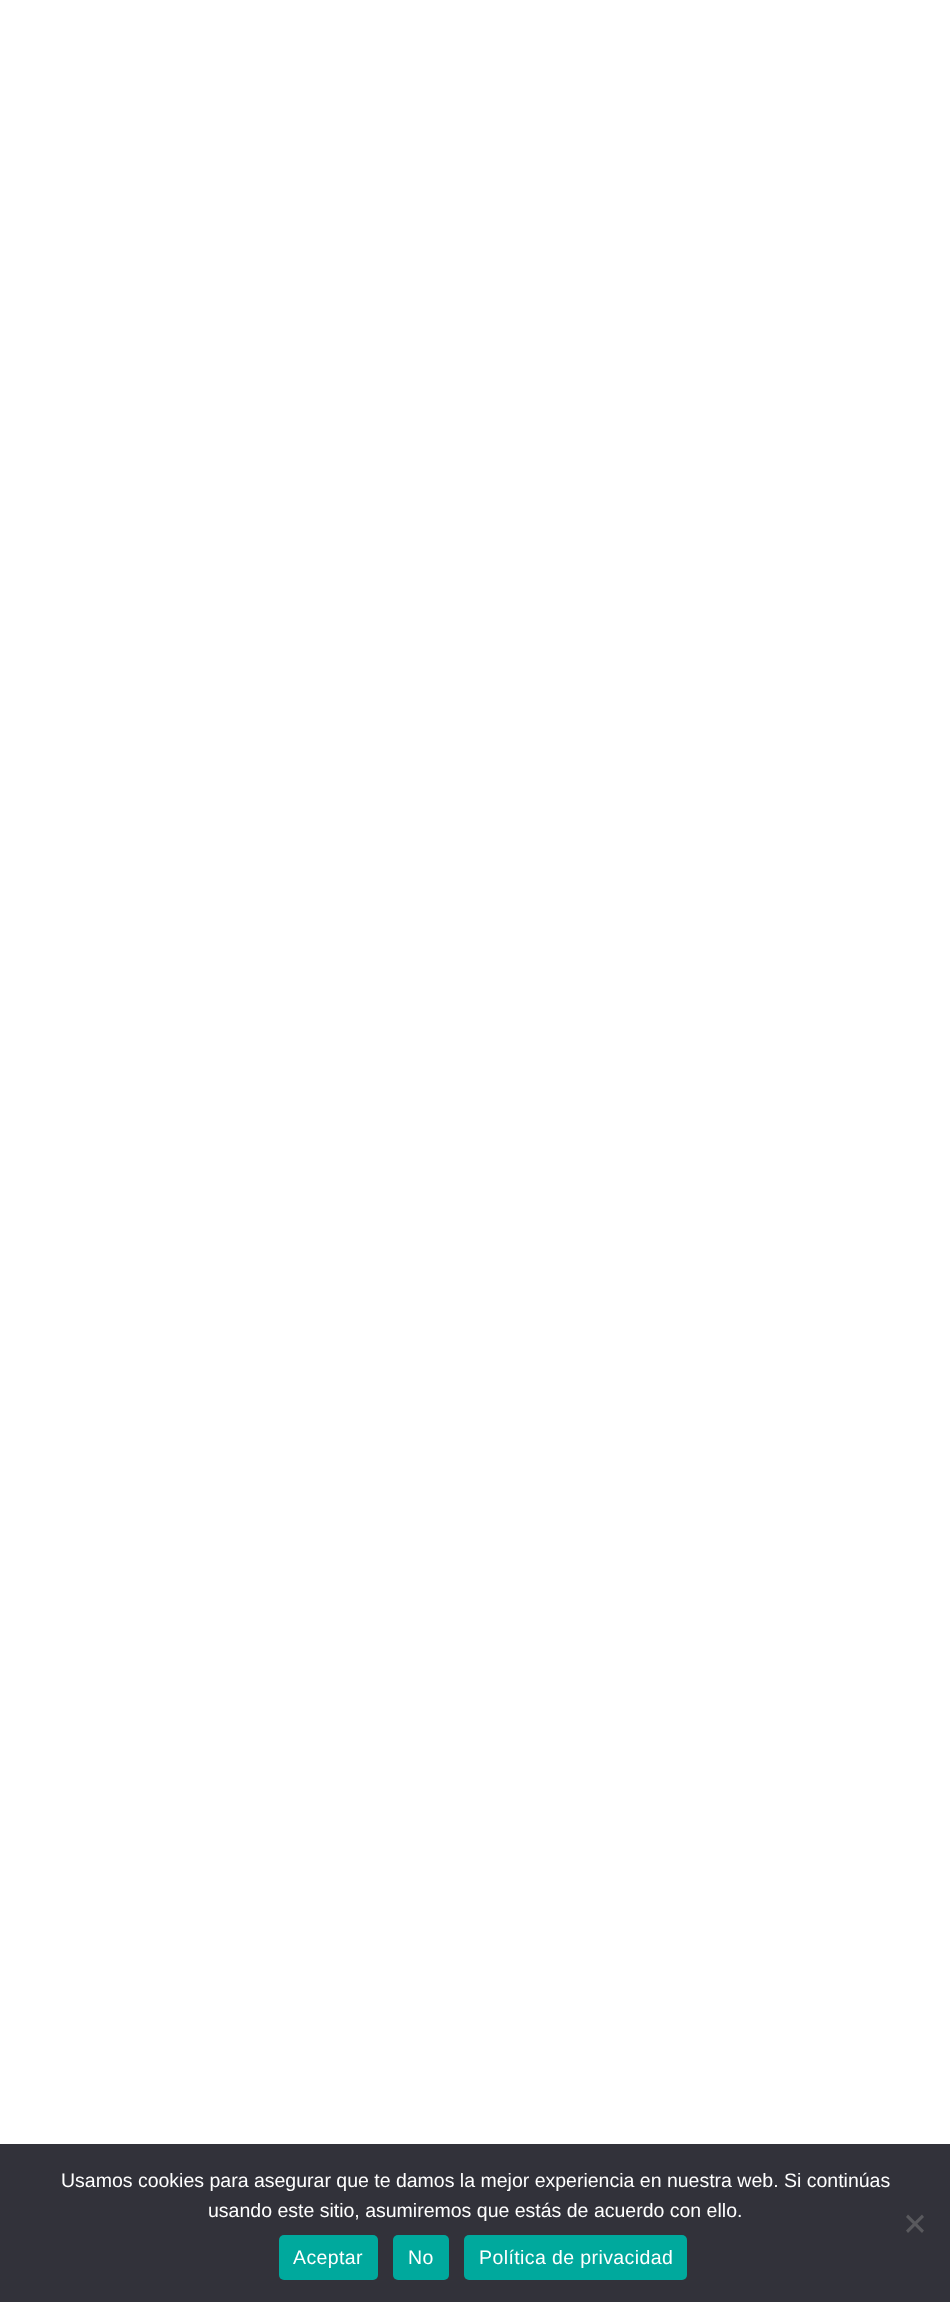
(async () => {
  const canvas = document.querySelector("canvas");
  canvas.width = 950;
  canvas.height = 2302;
  const ctx = canvas.getContext("2d");
  ctx.miterLimit = 4;
  ctx.fontKerning = "normal";
  let path;

  ctx.fillStyle = "#ffffff";
  ctx.fillRect(0, 0, 950, 2302);
  ctx.fillStyle = "#32323a";
  ctx.fillRect(0, 2144, 950, 158);
  ctx.fillStyle = "#59595d";
  path = new Path2D("M922 2214.5L924 2217L908 2233L906 2230.5Z");
  ctx.fill(path);
  path = new Path2D("M906 2217L908 2214.5L924 2230.5L922 2233Z");
  ctx.fill(path);
  ctx.fillStyle = "#00a99d";
  ctx.beginPath();
  ctx.roundRect(279, 2235, 99, 45, 5);
  ctx.fill();
  ctx.beginPath();
  ctx.roundRect(393, 2235, 56, 45, 5);
  ctx.fill();
  ctx.beginPath();
  ctx.roundRect(464, 2235, 223, 45, 5);
  ctx.fill();
  ctx.font = "19.5px Liberation Sans";
  ctx.fillStyle = "#ffffff";
  ctx.fillText("Usamos cookies para asegurar que te damos la mejor experiencia en nuestra web. Si continúas", 61, 2187);
  ctx.fillText("usando este sitio, asumiremos que estás de acuerdo con ello.", 208, 2217);
  ctx.letterSpacing = "0.4px";
  for (const [text, x, y] of [
    ["Aceptar", 293, 2264],
    ["No", 408, 2264],
    ["Política de privacidad", 479, 2264],
  ]) {
    ctx.fillText(text, x, y);
  }
})();
